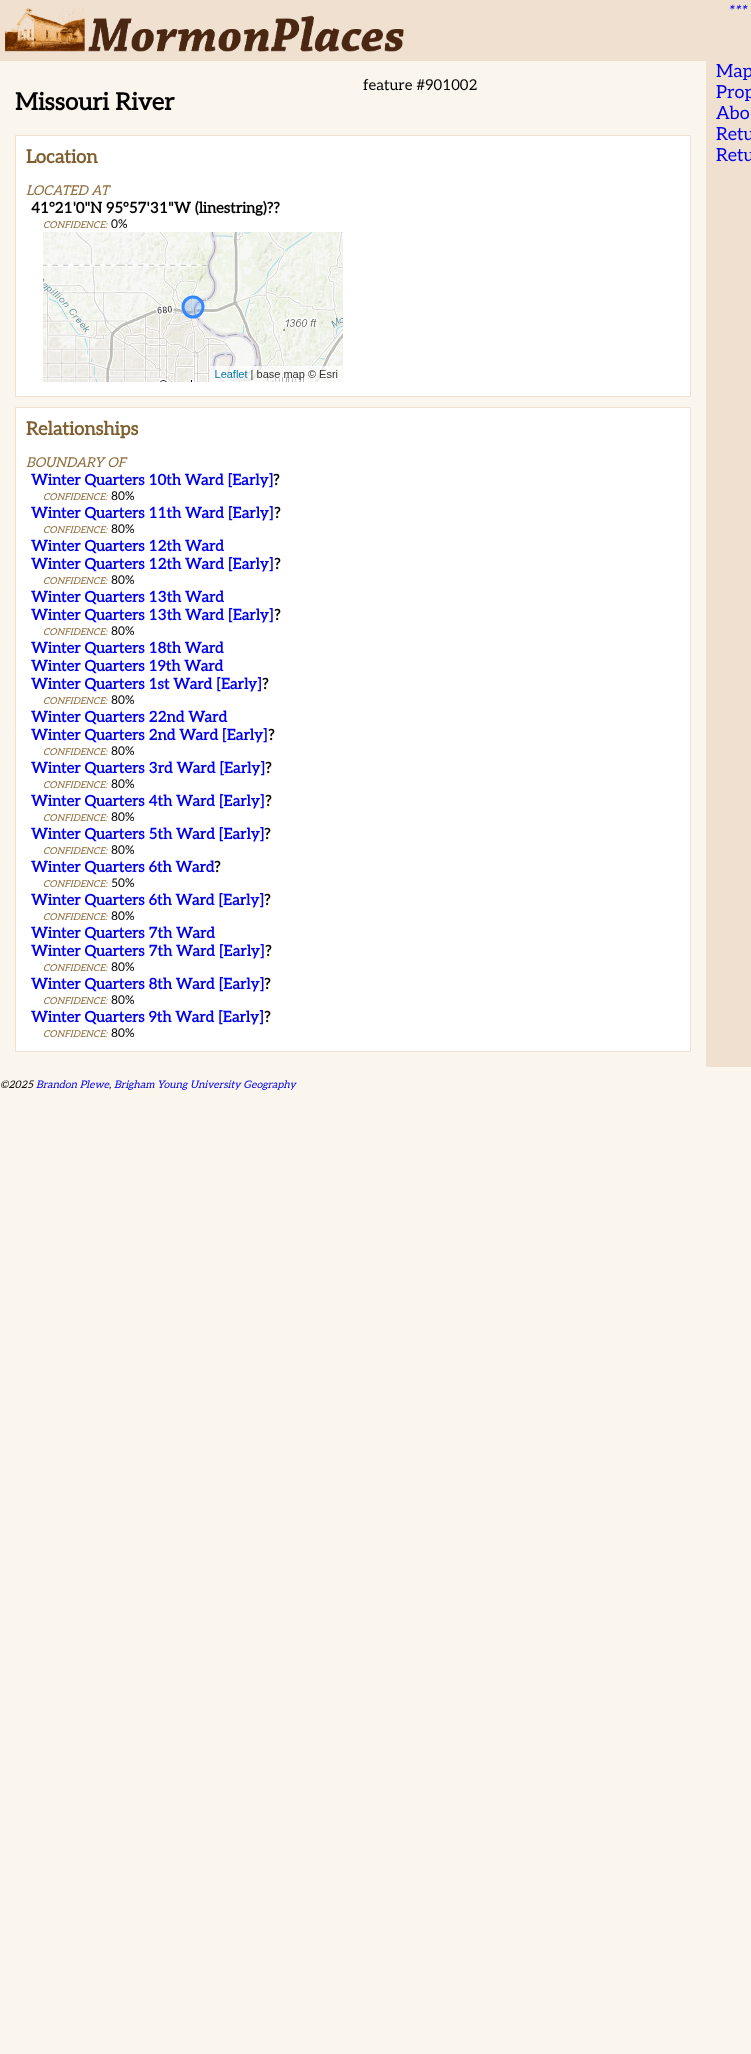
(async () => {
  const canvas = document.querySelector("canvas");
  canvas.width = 751;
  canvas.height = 2054;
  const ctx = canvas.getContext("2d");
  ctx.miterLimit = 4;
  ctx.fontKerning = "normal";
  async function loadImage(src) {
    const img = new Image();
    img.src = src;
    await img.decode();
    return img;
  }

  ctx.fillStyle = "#faf5ed";
  ctx.fillRect(0, 0, 751, 2054);
  ctx.fillStyle = "#f0e0d0";
  ctx.fillRect(0, 0, 751, 61);
  ctx.drawImage(await loadImage("img/1.png"), 5, 8, 399, 44);
  ctx.fillStyle = "#ffffff";
  ctx.beginPath();
  ctx.rect(15.5, 135.5, 675, 261);
  ctx.fill();
  ctx.strokeStyle = "#f0e0d0";
  ctx.stroke();
  ctx.drawImage(await loadImage("img/2.png"), 43, 232, 300, 150);
  ctx.beginPath();
  ctx.rect(15.5, 407.5, 675, 644);
  ctx.fill();
  ctx.stroke();
  ctx.fillStyle = "#f0e0d0";
  ctx.fillRect(706, 61, 45, 1006);
  ctx.font = "italic 15px Aleo";
  ctx.fillStyle = "#0000ee";
  ctx.fillText("***", 727, 16);
  ctx.font = "15px Aleo";
  ctx.fillStyle = "#000000";
  ctx.fillText("feature #901002", 363, 90);
  ctx.font = "bold 24px Aleo";
  ctx.fillText("Missouri River", 15, 110);
  ctx.font = "bold 18.5px Aleo";
  ctx.fillStyle = "#7f5f2f";
  ctx.fillText("Location", 26, 163);
  ctx.font = "italic 13.5px Aleo";
  ctx.fillStyle = "#8f6f3f";
  ctx.fillText("LOCATED AT", 26, 195);
  ctx.font = "bold 15px Aleo";
  ctx.fillStyle = "#000000";
  ctx.fillText("41°21'0\"N 95°57'31\"W (linestring)??", 31, 213);
  ctx.font = "italic 9.5px Aleo";
  ctx.fillStyle = "#8f6f3f";
  ctx.fillText("CONFIDENCE:", 43, 228);
  ctx.font = "12px Aleo";
  ctx.fillStyle = "#000000";
  ctx.fillText("0%", 111, 228);
  ctx.font = "bold 18.5px Aleo";
  ctx.fillStyle = "#7f5f2f";
  ctx.fillText("Relationships", 26, 435);
  ctx.font = "italic 13.5px Aleo";
  ctx.fillStyle = "#8f6f3f";
  ctx.fillText("BOUNDARY OF", 26, 467);
  ctx.font = "bold 15px Aleo";
  ctx.fillStyle = "#0000ee";
  ctx.fillText("Winter Quarters 10th Ward [Early]", 31, 485);
  ctx.fillStyle = "#000000";
  ctx.fillText("?", 273, 485);
  ctx.font = "italic 9.5px Aleo";
  ctx.fillStyle = "#8f6f3f";
  ctx.fillText("CONFIDENCE:", 43, 500);
  ctx.font = "12px Aleo";
  ctx.fillStyle = "#000000";
  ctx.fillText("80%", 111, 500);
  ctx.font = "bold 15px Aleo";
  ctx.fillStyle = "#0000ee";
  ctx.fillText("Winter Quarters 11th Ward [Early]", 31, 518);
  ctx.fillStyle = "#000000";
  ctx.fillText("?", 274, 518);
  ctx.font = "italic 9.5px Aleo";
  ctx.fillStyle = "#8f6f3f";
  ctx.fillText("CONFIDENCE:", 43, 533);
  ctx.font = "12px Aleo";
  ctx.fillStyle = "#000000";
  ctx.fillText("80%", 111, 533);
  ctx.font = "bold 15px Aleo";
  ctx.fillStyle = "#0000ee";
  ctx.fillText("Winter Quarters 12th Ward", 31, 551);
  ctx.fillText("Winter Quarters 12th Ward [Early]", 31, 569);
  ctx.fillStyle = "#000000";
  ctx.fillText("?", 274, 569);
  ctx.font = "italic 9.5px Aleo";
  ctx.fillStyle = "#8f6f3f";
  ctx.fillText("CONFIDENCE:", 43, 584);
  ctx.font = "12px Aleo";
  ctx.fillStyle = "#000000";
  ctx.fillText("80%", 111, 584);
  ctx.font = "bold 15px Aleo";
  ctx.fillStyle = "#0000ee";
  ctx.fillText("Winter Quarters 13th Ward", 31, 602);
  ctx.fillText("Winter Quarters 13th Ward [Early]", 31, 620);
  ctx.fillStyle = "#000000";
  ctx.fillText("?", 274, 620);
  ctx.font = "italic 9.5px Aleo";
  ctx.fillStyle = "#8f6f3f";
  ctx.fillText("CONFIDENCE:", 43, 635);
  ctx.font = "12px Aleo";
  ctx.fillStyle = "#000000";
  ctx.fillText("80%", 111, 635);
  ctx.font = "bold 15px Aleo";
  ctx.fillStyle = "#0000ee";
  for (const [text, x, y] of [
    ["Winter Quarters 18th Ward", 31, 653],
    ["Winter Quarters 19th Ward", 31, 671],
    ["Winter Quarters 1st Ward [Early]", 31, 689],
  ]) {
    ctx.fillText(text, x, y);
  }
  ctx.fillStyle = "#000000";
  ctx.fillText("?", 262, 689);
  ctx.font = "italic 9.5px Aleo";
  ctx.fillStyle = "#8f6f3f";
  ctx.fillText("CONFIDENCE:", 43, 704);
  ctx.font = "12px Aleo";
  ctx.fillStyle = "#000000";
  ctx.fillText("80%", 111, 704);
  ctx.font = "bold 15px Aleo";
  ctx.fillStyle = "#0000ee";
  ctx.fillText("Winter Quarters 22nd Ward", 31, 722);
  ctx.fillText("Winter Quarters 2nd Ward [Early]", 31, 740);
  ctx.fillStyle = "#000000";
  ctx.fillText("?", 268, 740);
  ctx.font = "italic 9.5px Aleo";
  ctx.fillStyle = "#8f6f3f";
  ctx.fillText("CONFIDENCE:", 43, 755);
  ctx.font = "12px Aleo";
  ctx.fillStyle = "#000000";
  ctx.fillText("80%", 111, 755);
  ctx.font = "bold 15px Aleo";
  ctx.fillStyle = "#0000ee";
  ctx.fillText("Winter Quarters 3rd Ward [Early]", 31, 773);
  ctx.fillStyle = "#000000";
  ctx.fillText("?", 265, 773);
  ctx.font = "italic 9.5px Aleo";
  ctx.fillStyle = "#8f6f3f";
  ctx.fillText("CONFIDENCE:", 43, 788);
  ctx.font = "12px Aleo";
  ctx.fillStyle = "#000000";
  ctx.fillText("80%", 111, 788);
  ctx.font = "bold 15px Aleo";
  ctx.fillStyle = "#0000ee";
  ctx.fillText("Winter Quarters 4th Ward [Early]", 31, 806);
  ctx.fillStyle = "#000000";
  ctx.fillText("?", 265, 806);
  ctx.font = "italic 9.5px Aleo";
  ctx.fillStyle = "#8f6f3f";
  ctx.fillText("CONFIDENCE:", 43, 821);
  ctx.font = "12px Aleo";
  ctx.fillStyle = "#000000";
  ctx.fillText("80%", 111, 821);
  ctx.font = "bold 15px Aleo";
  ctx.fillStyle = "#0000ee";
  ctx.fillText("Winter Quarters 5th Ward [Early]", 31, 839);
  ctx.fillStyle = "#000000";
  ctx.fillText("?", 264, 839);
  ctx.font = "italic 9.5px Aleo";
  ctx.fillStyle = "#8f6f3f";
  ctx.fillText("CONFIDENCE:", 43, 854);
  ctx.font = "12px Aleo";
  ctx.fillStyle = "#000000";
  ctx.fillText("80%", 111, 854);
  ctx.font = "bold 15px Aleo";
  ctx.fillStyle = "#0000ee";
  ctx.fillText("Winter Quarters 6th Ward", 31, 872);
  ctx.fillStyle = "#000000";
  ctx.fillText("?", 214, 872);
  ctx.font = "italic 9.5px Aleo";
  ctx.fillStyle = "#8f6f3f";
  ctx.fillText("CONFIDENCE:", 43, 887);
  ctx.font = "12px Aleo";
  ctx.fillStyle = "#000000";
  ctx.fillText("50%", 111, 887);
  ctx.font = "bold 15px Aleo";
  ctx.fillStyle = "#0000ee";
  ctx.fillText("Winter Quarters 6th Ward [Early]", 31, 905);
  ctx.fillStyle = "#000000";
  ctx.fillText("?", 264, 905);
  ctx.font = "italic 9.5px Aleo";
  ctx.fillStyle = "#8f6f3f";
  ctx.fillText("CONFIDENCE:", 43, 920);
  ctx.font = "12px Aleo";
  ctx.fillStyle = "#000000";
  ctx.fillText("80%", 111, 920);
  ctx.font = "bold 15px Aleo";
  ctx.fillStyle = "#0000ee";
  ctx.fillText("Winter Quarters 7th Ward", 31, 938);
  ctx.fillText("Winter Quarters 7th Ward [Early]", 31, 956);
  ctx.fillStyle = "#000000";
  ctx.fillText("?", 265, 956);
  ctx.font = "italic 9.5px Aleo";
  ctx.fillStyle = "#8f6f3f";
  ctx.fillText("CONFIDENCE:", 43, 971);
  ctx.font = "12px Aleo";
  ctx.fillStyle = "#000000";
  ctx.fillText("80%", 111, 971);
  ctx.font = "bold 15px Aleo";
  ctx.fillStyle = "#0000ee";
  ctx.fillText("Winter Quarters 8th Ward [Early]", 31, 989);
  ctx.fillStyle = "#000000";
  ctx.fillText("?", 264, 989);
  ctx.font = "italic 9.5px Aleo";
  ctx.fillStyle = "#8f6f3f";
  ctx.fillText("CONFIDENCE:", 43, 1004);
  ctx.font = "12px Aleo";
  ctx.fillStyle = "#000000";
  ctx.fillText("80%", 111, 1004);
  ctx.font = "bold 15px Aleo";
  ctx.fillStyle = "#0000ee";
  ctx.fillText("Winter Quarters 9th Ward [Early]", 31, 1022);
  ctx.fillStyle = "#000000";
  ctx.fillText("?", 264, 1022);
  ctx.font = "italic 9.5px Aleo";
  ctx.fillStyle = "#8f6f3f";
  ctx.fillText("CONFIDENCE:", 43, 1037);
  ctx.font = "12px Aleo";
  ctx.fillStyle = "#000000";
  ctx.fillText("80%", 111, 1037);
  ctx.font = "18px Aleo";
  ctx.fillStyle = "#0000ee";
  for (const [text, x, y] of [
    ["Map", 716, 77],
    ["Prop", 716, 98],
    ["Abo", 716, 119],
    ["Retu", 716, 140],
    ["Retu", 716, 161],
  ]) {
    ctx.fillText(text, x, y);
  }
  ctx.font = "italic 10.5px Aleo";
  ctx.fillStyle = "#000000";
  ctx.fillText("©2025", 0, 1088);
  ctx.fillStyle = "#0000ee";
  ctx.fillText("Brandon Plewe", 36, 1088);
  ctx.fillText("Brigham Young University Geography", 114, 1088);
  ctx.fillStyle = "#000000";
  ctx.fillText(",", 109, 1088);
})();
